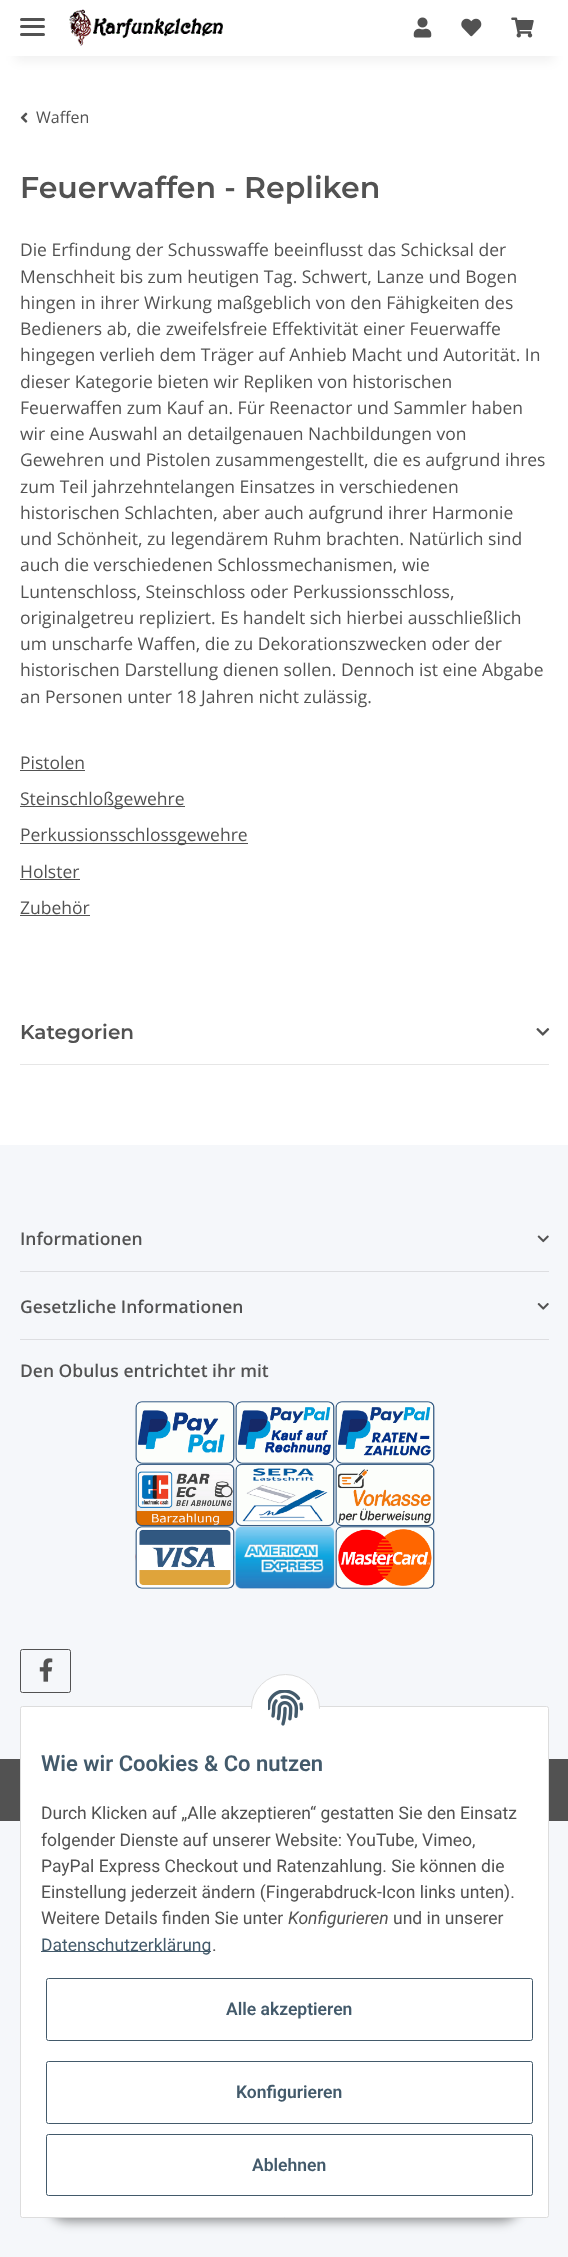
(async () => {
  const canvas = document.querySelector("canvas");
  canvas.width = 568;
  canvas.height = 2257;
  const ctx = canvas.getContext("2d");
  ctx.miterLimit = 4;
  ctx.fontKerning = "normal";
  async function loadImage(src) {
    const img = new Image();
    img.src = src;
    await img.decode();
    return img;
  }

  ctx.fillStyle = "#f5f7fa";
  ctx.fillRect(0, 0, 568, 2257);
  ctx.fillStyle = "#ffffff";
  ctx.fillRect(0, 56, 568, 1089);
  ctx.fillStyle = "rgba(0, 0, 0, 0.06)";
  ctx.filter = "blur(5.5px)";
  ctx.beginPath();
  ctx.rect(15, 35, 539, 26);
  ctx.fill();
  ctx.filter = "none";
  ctx.fillStyle = "#ffffff";
  ctx.fillRect(0, 0, 568, 56);
  ctx.fillStyle = "#525252";
  ctx.beginPath();
  ctx.roundRect(20, 25, 25, 3, 1.5);
  ctx.fill();
  ctx.beginPath();
  ctx.roundRect(20, 18, 25, 3, 1.5);
  ctx.fill();
  ctx.beginPath();
  ctx.roundRect(20, 33, 25, 3, 1.5);
  ctx.fill();
  ctx.drawImage(await loadImage("img/1.png"), 69, 9, 154, 37);
  ctx.drawImage(await loadImage("img/2.png"), 413, 17, 19, 21);
  ctx.drawImage(await loadImage("img/3.png"), 461, 18, 21, 19);
  ctx.drawImage(await loadImage("img/4.png"), 511, 17, 23, 21);
  ctx.drawImage(await loadImage("img/5.png"), 20, 112, 8, 11);
  for (const [x, y, w, h, color] of [
    [20, 770, 65, 1, "#525252"],
    [20, 806, 165, 1, "#525252"],
    [20, 843, 228, 1, "#525252"],
    [20, 879, 60, 1, "#525252"],
    [20, 915, 70, 1, "#525252"],
  ]) {
    ctx.fillStyle = color;
    ctx.fillRect(x, y, w, h);
  }
  ctx.drawImage(await loadImage("img/6.png"), 536, 1028, 14, 8);
  ctx.fillStyle = "#e6e6e6";
  ctx.fillRect(20, 1064, 529, 1);
  ctx.drawImage(await loadImage("img/7.png"), 537, 1235, 12, 8);
  ctx.fillStyle = "#dddee1";
  ctx.fillRect(20, 1271, 529, 1);
  ctx.drawImage(await loadImage("img/8.png"), 537, 1303, 12, 7);
  ctx.fillRect(20, 1339, 529, 1);
  ctx.drawImage(await loadImage("img/9.png"), 135, 1401, 100, 63);
  ctx.drawImage(await loadImage("img/10.png"), 235, 1401, 100, 63);
  ctx.drawImage(await loadImage("img/11.png"), 335, 1401, 100, 63);
  ctx.drawImage(await loadImage("img/12.png"), 135, 1463, 100, 64);
  ctx.drawImage(await loadImage("img/13.png"), 235, 1463, 100, 64);
  ctx.drawImage(await loadImage("img/14.png"), 335, 1463, 100, 64);
  ctx.drawImage(await loadImage("img/15.png"), 135, 1526, 100, 63);
  ctx.drawImage(await loadImage("img/16.png"), 235, 1526, 100, 63);
  ctx.drawImage(await loadImage("img/17.png"), 335, 1526, 100, 63);
  ctx.beginPath();
  ctx.roundRect(20.5, 1649.5, 50, 43, 2);
  ctx.strokeStyle = "#525252";
  ctx.stroke();
  ctx.drawImage(await loadImage("img/18.png"), 39, 1658, 14, 24);
  ctx.fillStyle = "#525252";
  ctx.fillRect(0, 1759, 568, 62);
  ctx.fillStyle = "rgba(0, 0, 0, 0.45)";
  ctx.filter = "blur(6px)";
  ctx.beginPath();
  ctx.roundRect(48, 2181, 473, 40, 20);
  ctx.fill();
  ctx.filter = "none";
  ctx.fillStyle = "#ffffff";
  ctx.beginPath();
  ctx.roundRect(20.5, 1706.5, 528, 511, 2);
  ctx.fill();
  ctx.strokeStyle = "#dddddd";
  ctx.stroke();
  ctx.beginPath();
  ctx.arc(285.5, 1708.5, 34, 0, Math.PI * 2);
  ctx.fill();
  ctx.stroke();
  ctx.fillRect(251, 1709, 69, 34);
  ctx.drawImage(await loadImage("img/19.png"), 268, 1690, 36, 36);
  ctx.fillStyle = "#435a6b";
  ctx.fillRect(41, 1951, 170, 1);
  ctx.beginPath();
  ctx.roundRect(46.5, 1978.5, 486, 62, 2);
  ctx.strokeStyle = "#435a6b";
  ctx.stroke();
  ctx.beginPath();
  ctx.roundRect(46.5, 2061.5, 486, 62, 2);
  ctx.stroke();
  ctx.beginPath();
  ctx.roundRect(46.5, 2134.5, 486, 61, 2);
  ctx.stroke();
  ctx.font = "16px Open Sans";
  ctx.fillStyle = "#525252";
  ctx.fillText("Waffen", 36, 123);
  ctx.font = "600 30px Montserrat";
  ctx.fillText("Feuerwaffen - Repliken", 20, 198);
  ctx.font = "17.5px Open Sans";
  for (const [text, x, y] of [
    ["Die Erfindung der Schusswaffe beeinflusst das Schicksal der", 20, 256],
    ["Menschheit bis zum heutigen Tag. Schwert, Lanze und Bogen", 20, 283],
    ["hingen in ihrer Wirkung maßgeblich von den Fähigkeiten des", 20, 309],
    ["Bedieners ab, die zweifelsfreie Effektivität einer Feuerwaffe", 20, 335],
    ["hingegen verlieh dem Träger auf Anhieb Macht und Autorität. In", 20, 361],
    ["dieser Kategorie bieten wir Repliken von historischen", 20, 388],
    ["Feuerwaffen zum Kauf an. Für Reenactor und Sammler haben", 20, 414],
    ["wir eine Auswahl an detailgenauen Nachbildungen von", 20, 440],
    ["Gewehren und Pistolen zusammengestellt, die es aufgrund ihres", 20, 466],
    ["zum Teil jahrzehntelangen Einsatzes in verschiedenen", 20, 493],
    ["historischen Schlachten, aber auch aufgrund ihrer Harmonie", 20, 519],
    ["und Schönheit, zu legendärem Ruhm brachten. Natürlich sind", 20, 545],
    ["auch die verschiedenen Schlossmechanismen, wie", 20, 571],
    ["Luntenschloss, Steinschloss oder Perkussionsschloss,", 20, 598],
    ["originalgetreu repliziert. Es handelt sich hierbei ausschließlich", 20, 624],
    ["um unscharfe Waffen, die zu Dekorationszwecken oder der", 20, 650],
    ["historischen Darstellung dienen sollen. Dennoch ist eine Abgabe", 20, 676],
    ["an Personen unter 18 Jahren nicht zulässig.", 20, 703],
    ["Pistolen", 20, 769],
    ["Steinschloßgewehre", 20, 805],
    ["Perkussionsschlossgewehre", 20, 841],
    ["Holster", 20, 878],
    ["Zubehör", 20, 914],
  ]) {
    ctx.fillText(text, x, y);
  }
  ctx.font = "600 20px Montserrat";
  ctx.fillText("Kategorien", 20, 1039);
  ctx.font = "600 17.5px Open Sans";
  for (const [text, x, y] of [
    ["Informationen", 20, 1245],
    ["Gesetzliche Informationen", 20, 1313],
    ["Den Obulus entrichtet ihr mit", 20, 1377],
  ]) {
    ctx.fillText(text, x, y);
  }
  ctx.font = "600 22px Roboto";
  ctx.fillStyle = "#435a6b";
  ctx.fillText("Wie wir Cookies & Co nutzen", 41, 1771);
  ctx.font = "17.5px Roboto";
  ctx.fillStyle = "#525252";
  for (const [text, x, y] of [
    ["Durch Klicken auf „Alle akzeptieren“ gestatten Sie den Einsatz", 41, 1819],
    ["folgender Dienste auf unserer Website: YouTube, Vimeo,", 41, 1846],
    ["PayPal Express Checkout und Ratenzahlung. Sie können die", 41, 1872],
    ["Einstellung jederzeit ändern (Fingerabdruck-Icon links unten).", 41, 1898],
    ["Weitere Details finden Sie unter", 41, 1924],
  ]) {
    ctx.fillText(text, x, y);
  }
  ctx.font = "italic 17.5px Roboto";
  ctx.fillText("Konfigurieren", 288, 1924);
  ctx.font = "17.5px Roboto";
  ctx.fillText("und in unserer", 393, 1924);
  ctx.fillStyle = "#435a6b";
  ctx.fillText("Datenschutzerklärung", 41, 1951);
  ctx.fillStyle = "#525252";
  ctx.fillText(".", 212, 1951);
  ctx.font = "600 17.5px Roboto";
  ctx.fillStyle = "#435a6b";
  for (const [text, x, y] of [
    ["Alle akzeptieren", 226, 2015],
    ["Konfigurieren", 236, 2098],
    ["Ablehnen", 252, 2171],
  ]) {
    ctx.fillText(text, x, y);
  }
})();
